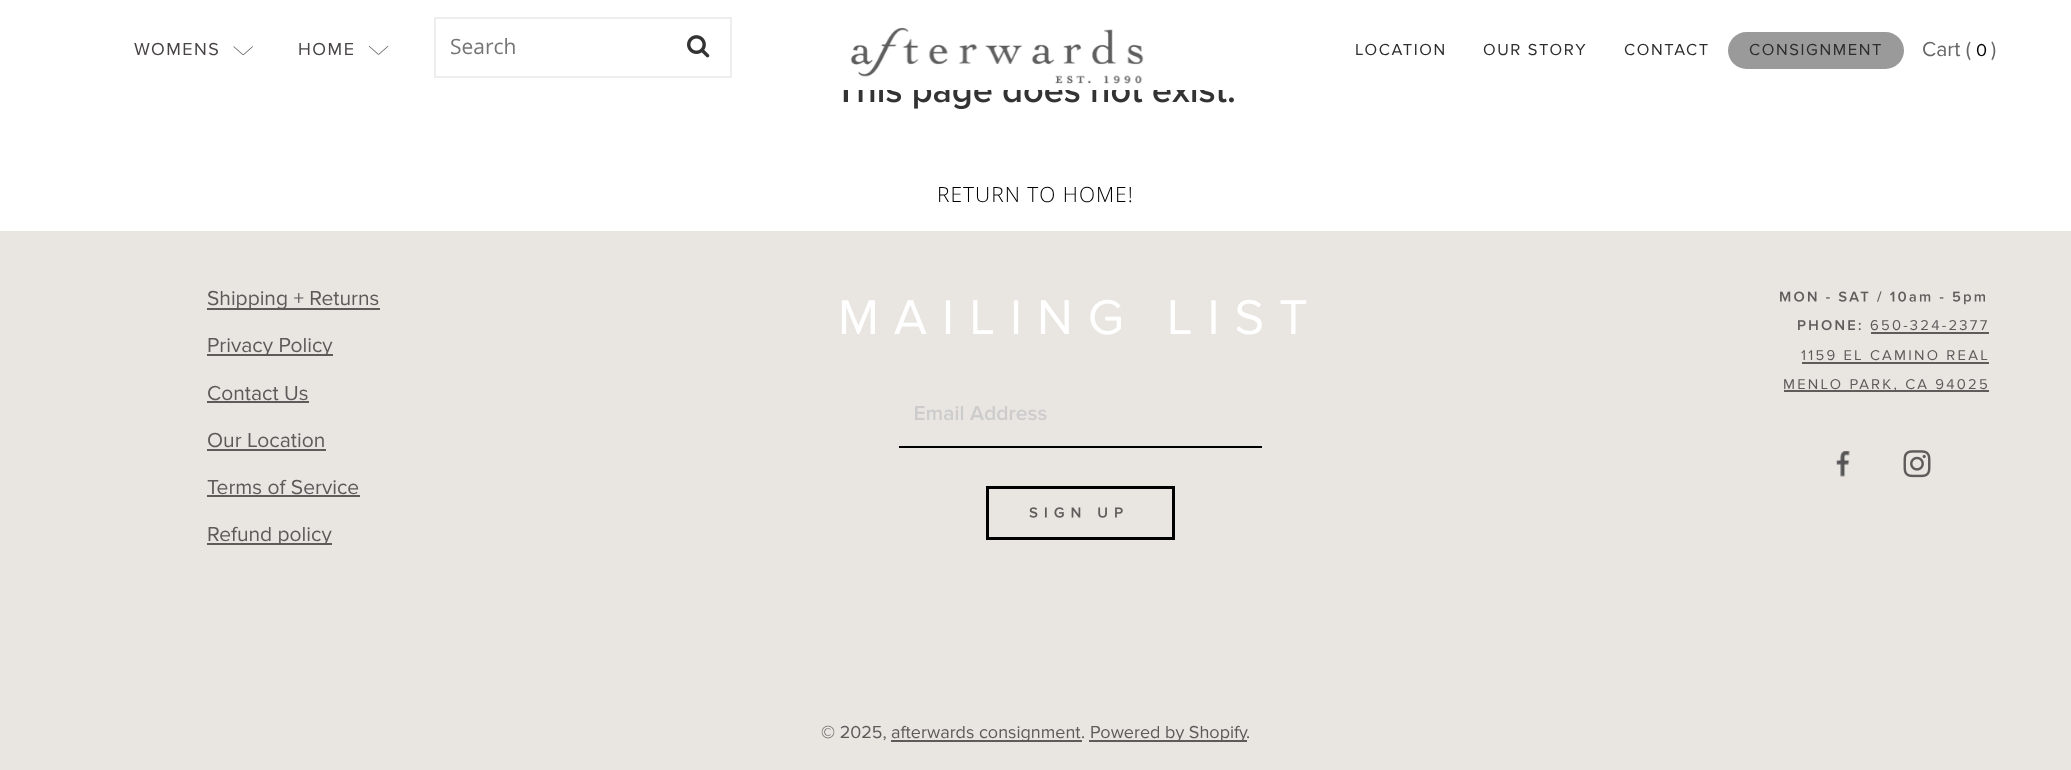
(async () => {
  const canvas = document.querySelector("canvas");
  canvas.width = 2071;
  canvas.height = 770;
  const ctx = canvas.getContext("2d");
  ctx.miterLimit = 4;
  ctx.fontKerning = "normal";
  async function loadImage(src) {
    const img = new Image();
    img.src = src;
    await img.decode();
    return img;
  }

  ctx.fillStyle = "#ffffff";
  ctx.fillRect(0, 0, 2071, 770);
  ctx.drawImage(await loadImage("img/1.png"), 233, 46, 20, 10);
  ctx.drawImage(await loadImage("img/2.png"), 368, 45, 21, 10);
  ctx.strokeStyle = "#eeeeee";
  ctx.lineWidth = 2;
  ctx.strokeRect(435, 18, 296, 59);
  ctx.drawImage(await loadImage("img/3.png"), 687, 35, 23, 23);
  ctx.drawImage(await loadImage("img/4.png"), 850, 27, 294, 57);
  ctx.fillStyle = "#9a9a9a";
  ctx.beginPath();
  ctx.roundRect(1728, 32, 176, 37, 18.5);
  ctx.fill();
  ctx.drawImage(await loadImage("img/5.png"), 843, 90, 391, 20);
  for (const [x, y, w, h, color] of [
    [0, 231, 2071, 539, "#e9e6e2"],
    [207, 308, 173, 2, "#5d5c5a"],
    [207, 354, 126, 2, "#5d5c5a"],
    [207, 401, 102, 2, "#5d5c5a"],
    [207, 449, 119, 2, "#5d5c5a"],
    [207, 495, 153, 2, "#5d5c5a"],
    [207, 543, 125, 2, "#5d5c5a"],
    [899, 446, 363, 2, "#000000"],
  ]) {
    ctx.fillStyle = color;
    ctx.fillRect(x, y, w, h);
  }
  ctx.drawImage(await loadImage("img/6.png"), 915, 406, 132, 15);
  ctx.strokeStyle = "#000000";
  ctx.lineWidth = 3;
  ctx.strokeRect(987.5, 487.5, 186, 51);
  ctx.drawImage(await loadImage("img/7.png"), 1029, 507, 94, 11);
  ctx.drawImage(await loadImage("img/8.png"), 1780, 291, 205, 14);
  ctx.drawImage(await loadImage("img/9.png"), 1798, 320, 63, 11);
  for (const [x, y, w, h, color] of [
    [1871, 332, 118, 2, "#5e5d5b"],
    [1802, 362, 187, 2, "#5e5d5b"],
    [1784, 390, 205, 2, "#5e5d5b"],
  ]) {
    ctx.fillStyle = color;
    ctx.fillRect(x, y, w, h);
  }
  ctx.drawImage(await loadImage("img/10.png"), 1836, 451, 14, 26);
  ctx.drawImage(await loadImage("img/11.png"), 1903, 450, 28, 28);
  ctx.fillStyle = "#5d5c5a";
  ctx.fillRect(891, 740, 191, 2);
  ctx.fillRect(1089, 740, 158, 2);
  ctx.letterSpacing = "1.5px";
  ctx.font = "18px Proxima Nova";
  ctx.fillStyle = "#484445";
  ctx.fillText("WOMENS", 134, 55);
  ctx.fillText("HOME", 298, 55);
  ctx.letterSpacing = "0px";
  ctx.font = "21px Open Sans";
  ctx.fillStyle = "#757575";
  ctx.fillText("Search", 450, 54);
  ctx.letterSpacing = "1.6px";
  ctx.font = "16.5px Proxima Nova";
  ctx.fillStyle = "#2d2d2d";
  for (const [text, x, y] of [
    ["LOCATION", 1355, 55],
    ["OUR STORY", 1483, 55],
    ["CONTACT", 1624, 55],
    ["CONSIGNMENT", 1749, 55],
  ]) {
    ctx.fillText(text, x, y);
  }
  ctx.letterSpacing = "0px";
  ctx.font = "21px Proxima Nova";
  ctx.fillStyle = "#666666";
  ctx.fillText("Cart (", 1922, 56);
  ctx.fillText(")", 1991, 56);
  ctx.fillStyle = "#ffffff";
  ctx.beginPath();
  ctx.ellipse(1981.5, 52, 10.5, 19, 0, 0, Math.PI * 2);
  ctx.fill();
  ctx.font = "18px Proxima Nova";
  ctx.fillStyle = "#000000";
  ctx.fillText("0", 1976, 56);
  ctx.letterSpacing = "1px";
  ctx.font = "300 21px Open Sans";
  ctx.fillText("RETURN TO HOME!", 937, 202);
  ctx.letterSpacing = "0px";
  ctx.font = "21px Proxima Nova";
  ctx.fillStyle = "#5c5b5a";
  for (const [text, x, y] of [
    ["Shipping + Returns", 207, 305],
    ["Privacy Policy", 207, 352],
    ["Contact Us", 207, 400],
    ["Our Location", 207, 447],
    ["Terms of Service", 207, 494],
    ["Refund policy", 207, 541],
  ]) {
    ctx.fillText(text, x, y);
  }
  ctx.letterSpacing = "15px";
  ctx.font = "50.5px Proxima Nova";
  ctx.fillStyle = "#ffffff";
  ctx.fillText("MAILING LIST", 838, 334);
  ctx.letterSpacing = "2.25px";
  ctx.font = "14.75px Proxima Nova";
  ctx.fillStyle = "#5c5b5a";
  for (const [text, x, y] of [
    ["650-324-2377", 1870, 330],
    ["1159 EL CAMINO REAL", 1801, 360],
    ["MENLO PARK, CA 94025", 1783, 389],
  ]) {
    ctx.fillText(text, x, y);
  }
  ctx.letterSpacing = "0px";
  ctx.font = "18px Proxima Nova";
  for (const [text, x, y] of [
    ["© 2025,", 821, 738],
    ["afterwards consignment", 891, 738],
    [".", 1081, 738],
    ["Powered by Shopify", 1090, 738],
    [".", 1246, 738],
  ]) {
    ctx.fillText(text, x, y);
  }
})();
